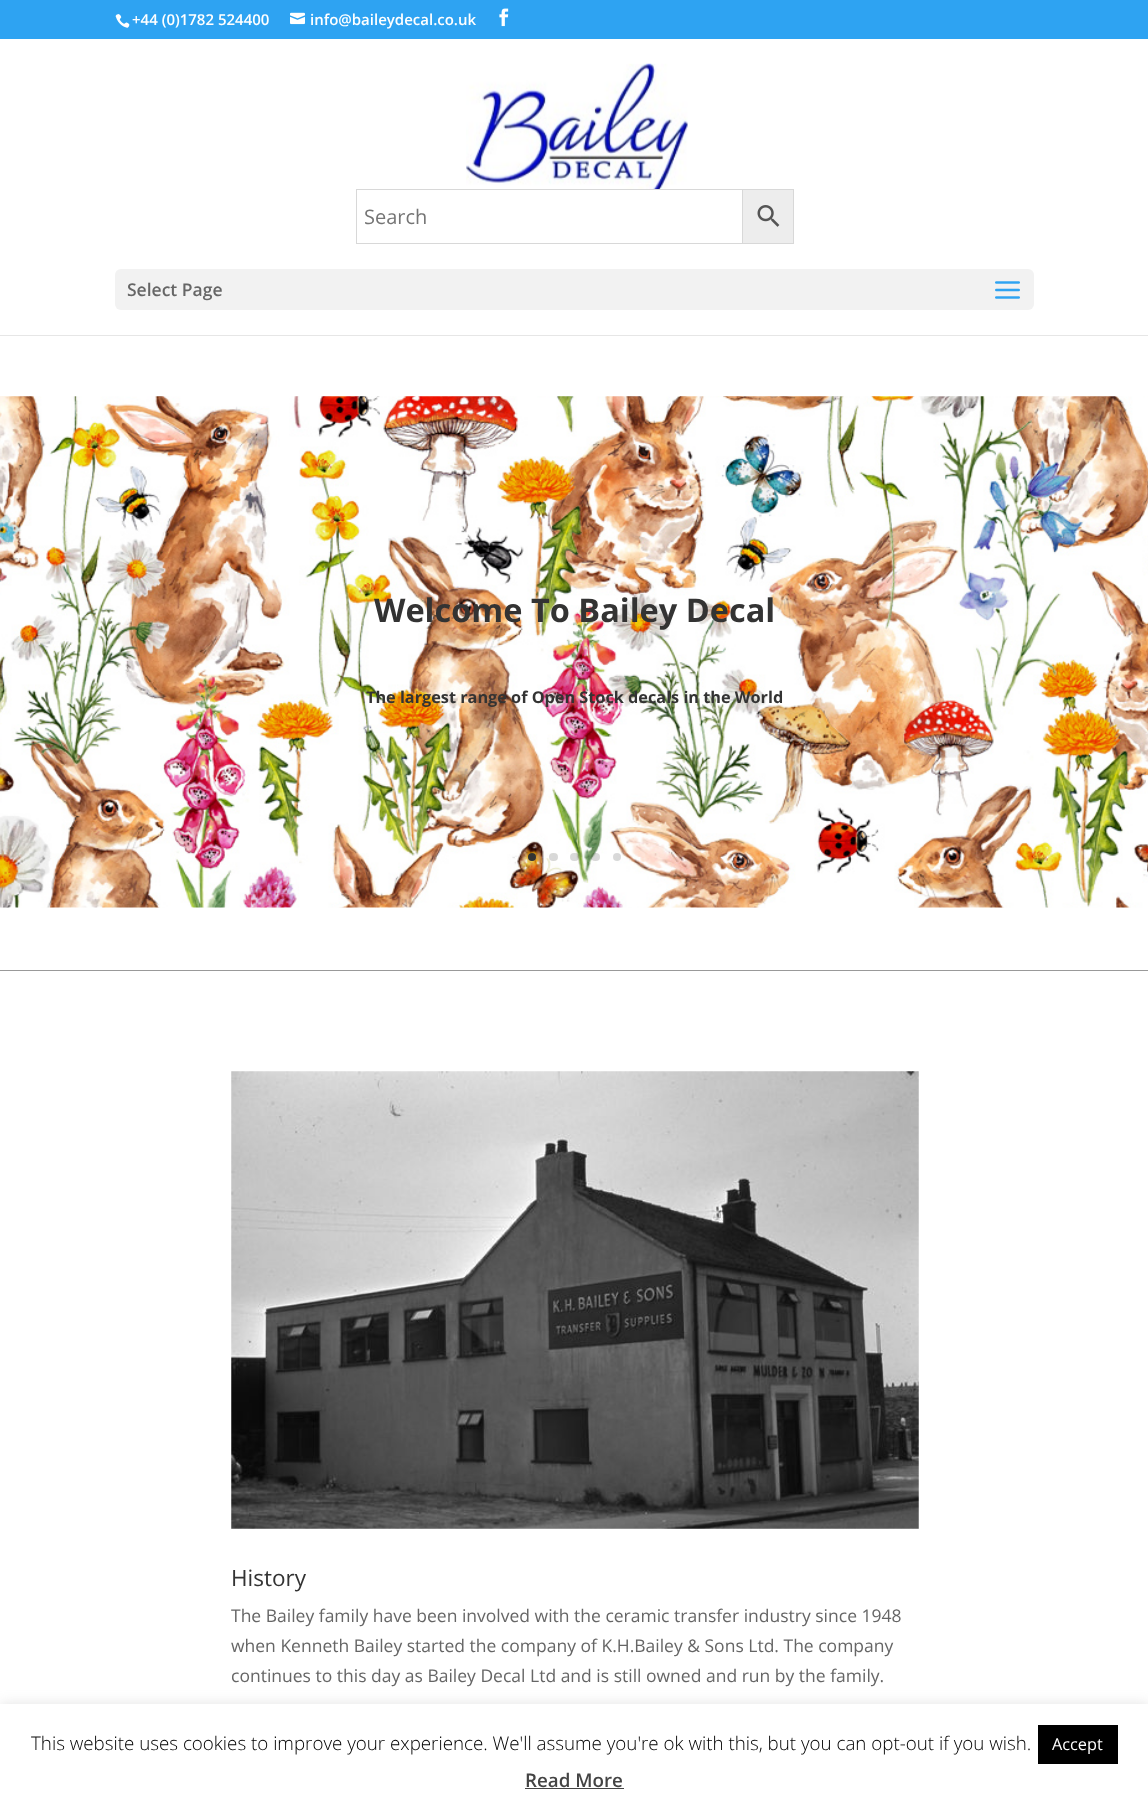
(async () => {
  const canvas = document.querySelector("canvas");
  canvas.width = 1148;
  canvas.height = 1809;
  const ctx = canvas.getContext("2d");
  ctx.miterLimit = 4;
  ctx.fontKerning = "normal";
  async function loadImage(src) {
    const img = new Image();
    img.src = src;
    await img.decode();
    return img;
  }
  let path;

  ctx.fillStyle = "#ffffff";
  ctx.fillRect(0, 0, 1148, 1809);
  ctx.fillStyle = "#2ea3f2";
  ctx.fillRect(0, 0, 1148, 39);
  ctx.drawImage(await loadImage("img/1.png"), 115, 14, 15, 14);
  ctx.drawImage(await loadImage("img/2.png"), 290, 12, 15, 13);
  ctx.drawImage(await loadImage("img/3.png"), 499, 8, 10, 19);
  ctx.fillStyle = "#e6e6e6";
  path = new Path2D("M0 335V336H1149V40V335Z");
  ctx.fill(path);
  ctx.drawImage(await loadImage("img/4.png"), 466, 63, 222, 126);
  ctx.fillStyle = "#ededed";
  ctx.fillRect(743, 190, 50, 53);
  ctx.strokeStyle = "#d8d8d8";
  ctx.strokeRect(741.5, 189.5, 52, 54);
  ctx.fillStyle = "#ffffff";
  ctx.fillRect(741, 190, 1, 53);
  ctx.strokeRect(356.5, 189.5, 386, 54);
  ctx.drawImage(await loadImage("img/5.png"), 757, 205, 23, 22);
  ctx.fillStyle = "#f2f2f2";
  ctx.beginPath();
  ctx.roundRect(115, 269, 919, 41, 6);
  ctx.fill();
  ctx.drawImage(await loadImage("img/6.png"), 995, 281, 25, 18);
  ctx.fillStyle = "#999999";
  ctx.fillRect(0, 970, 1148, 1);
  ctx.drawImage(await loadImage("img/7.png"), 0, 396, 1148, 512);
  ctx.fillStyle = "#333333";
  ctx.beginPath();
  ctx.arc(532, 857, 4, 0, Math.PI * 2);
  ctx.fill();
  ctx.fillStyle = "rgba(0, 0, 0, 0.15)";
  ctx.beginPath();
  ctx.roundRect(549, 853, 9, 8, 4);
  ctx.fill();
  ctx.beginPath();
  ctx.roundRect(570, 853, 9, 8, 4);
  ctx.fill();
  ctx.beginPath();
  ctx.roundRect(591, 853, 9, 8, 4);
  ctx.fill();
  ctx.beginPath();
  ctx.arc(617, 857, 4, 0, Math.PI * 2);
  ctx.fill();
  ctx.drawImage(await loadImage("img/8.png"), 231, 1071, 688, 458);
  ctx.fillStyle = "rgba(172, 171, 171, 0.3)";
  ctx.filter = "blur(6px)";
  ctx.beginPath();
  ctx.rect(0, 1703, 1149, 106);
  ctx.fill();
  ctx.filter = "none";
  for (const [x, y, w, h, color] of [
    [0, 1704, 1148, 105, "#ffffff"],
    [1038, 1725, 80, 39, "#000000"],
    [525, 1788, 99, 1, "#444444"],
  ]) {
    ctx.fillStyle = color;
    ctx.fillRect(x, y, w, h);
  }
  ctx.font = "600 15px Open Sans";
  ctx.fillStyle = "#ffffff";
  ctx.fillText("+44 (0)1782 524400", 132, 25);
  ctx.fillText("info@baileydecal.co.uk", 310, 25);
  ctx.font = "20px Open Sans";
  ctx.fillStyle = "#757575";
  ctx.fillText("Search", 364, 224);
  ctx.font = "600 17.5px Open Sans";
  ctx.fillStyle = "#666666";
  ctx.fillText("Select Page", 127, 296);
  ctx.font = "bold 32.5px Open Sans";
  ctx.fillStyle = "#333333";
  ctx.fillText("Welcome To Bailey Decal", 374, 622);
  ctx.font = "bold 16.25px Open Sans";
  ctx.fillText("The largest range of Open Stock decals in the World", 366, 703);
  ctx.font = "22.5px Open Sans";
  ctx.fillText("History", 231, 1586);
  ctx.font = "17.5px Open Sans";
  ctx.fillStyle = "#666666";
  for (const [text, x, y] of [
    ["The Bailey family have been involved with the ceramic transfer industry since 1948", 231, 1622],
    ["when Kenneth Bailey started the company of K.H.Bailey & Sons Ltd. The company", 231, 1652],
    ["continues to this day as Bailey Decal Ltd and is still owned and run by the family.", 231, 1682],
  ]) {
    ctx.fillText(text, x, y);
  }
  ctx.font = "300 18.75px Open Sans";
  ctx.fillStyle = "#000000";
  ctx.fillText("This website uses cookies to improve your experience. We'll assume you're ok with this, but you can opt-out if you wish.", 31, 1750);
  ctx.font = "16.25px Open Sans";
  ctx.fillStyle = "#ffffff";
  ctx.fillText("Accept", 1052, 1750);
  ctx.font = "600 18.75px Open Sans";
  ctx.fillStyle = "#444444";
  ctx.fillText("Read More", 525, 1787);
})();
